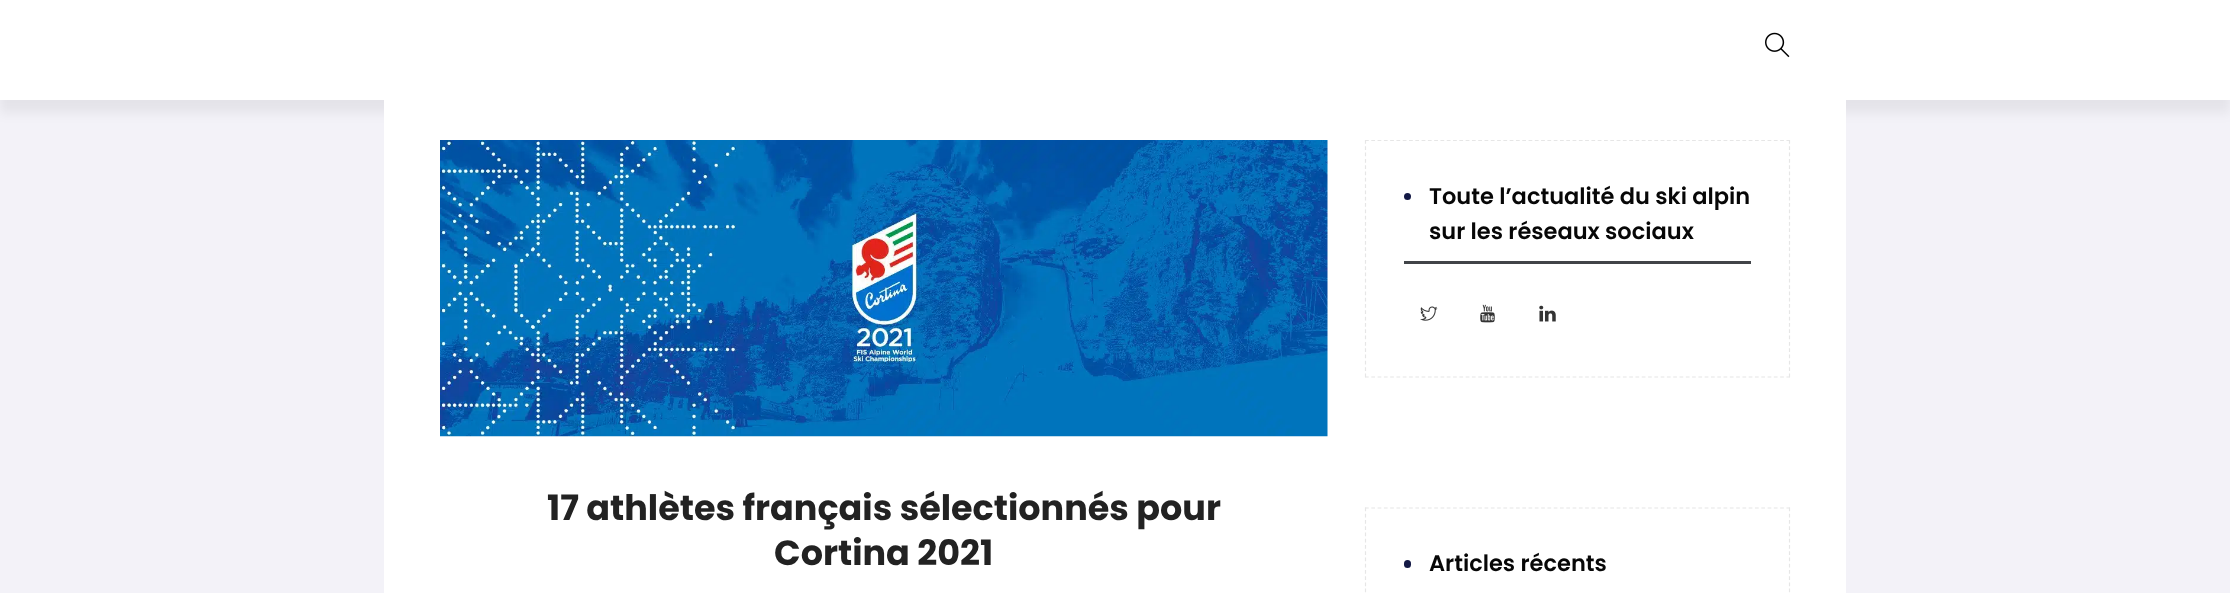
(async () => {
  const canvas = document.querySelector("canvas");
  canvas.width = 2230;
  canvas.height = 593;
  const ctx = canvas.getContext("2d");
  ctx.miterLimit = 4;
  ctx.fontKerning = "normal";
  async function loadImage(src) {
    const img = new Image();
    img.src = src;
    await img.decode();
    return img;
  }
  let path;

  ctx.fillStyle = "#f3f2f8";
  ctx.fillRect(0, 0, 2230, 593);
  ctx.fillStyle = "rgba(0, 0, 0, 0.06)";
  ctx.filter = "blur(6px)";
  ctx.beginPath();
  ctx.rect(0, 13, 2230, 100);
  ctx.fill();
  ctx.filter = "none";
  ctx.fillStyle = "#ffffff";
  ctx.fillRect(0, 0, 2230, 100);
  ctx.drawImage(await loadImage("img/1.png"), 1765, 32, 25, 26);
  ctx.fillRect(384, 100, 1462, 493);
  ctx.drawImage(await loadImage("img/2.png"), 440, 140, 888, 297);
  path = new Path2D("M1365 140.5H1790");
  ctx.strokeStyle = "#e6e6e6";
  ctx.lineWidth = 1.2;
  ctx.setLineDash([3.75, 2.54]);
  ctx.stroke(path);
  path = new Path2D("M1789.5 140V377.5");
  ctx.setLineDash([3.75, 2.56]);
  ctx.stroke(path);
  path = new Path2D("M1365 377H1790");
  ctx.setLineDash([3.75, 2.54]);
  ctx.stroke(path);
  path = new Path2D("M1365.5 140V377.5");
  ctx.setLineDash([3.75, 2.56]);
  ctx.stroke(path);
  ctx.fillStyle = "#414448";
  ctx.fillRect(1404, 261, 347, 3);
  ctx.fillStyle = "#131945";
  ctx.beginPath();
  ctx.arc(1407.5, 196.5, 3.5, 0, Math.PI * 2);
  ctx.fill();
  ctx.drawImage(await loadImage("img/3.png"), 1420, 306, 18, 15);
  ctx.drawImage(await loadImage("img/4.png"), 1480, 304, 15, 19);
  ctx.drawImage(await loadImage("img/5.png"), 1539, 305, 17, 17);
  path = new Path2D("M1365 508H1790");
  ctx.setLineDash([3.75, 2.54]);
  ctx.stroke(path);
  path = new Path2D("M1789.5 507.5V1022.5");
  ctx.setLineDash([3.75, 2.49]);
  ctx.stroke(path);
  path = new Path2D("M1365.5 507.5V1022.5");
  ctx.stroke(path);
  ctx.beginPath();
  ctx.roundRect(1404, 560, 7, 8, 3.5);
  ctx.fill();
  ctx.font = "bold 35px Poppins";
  ctx.fillStyle = "#222222";
  ctx.fillText("17 athlètes français sélectionnés pour", 547, 520);
  ctx.fillText("Cortina 2021", 774, 565);
  ctx.font = "600 22.5px Poppins";
  ctx.fillStyle = "#070707";
  for (const [text, x, y] of [
    ["Toute l’actualité du ski alpin", 1429, 204],
    ["sur les réseaux sociaux", 1429, 239],
    ["Articles récents", 1429, 571],
  ]) {
    ctx.fillText(text, x, y);
  }
})();
